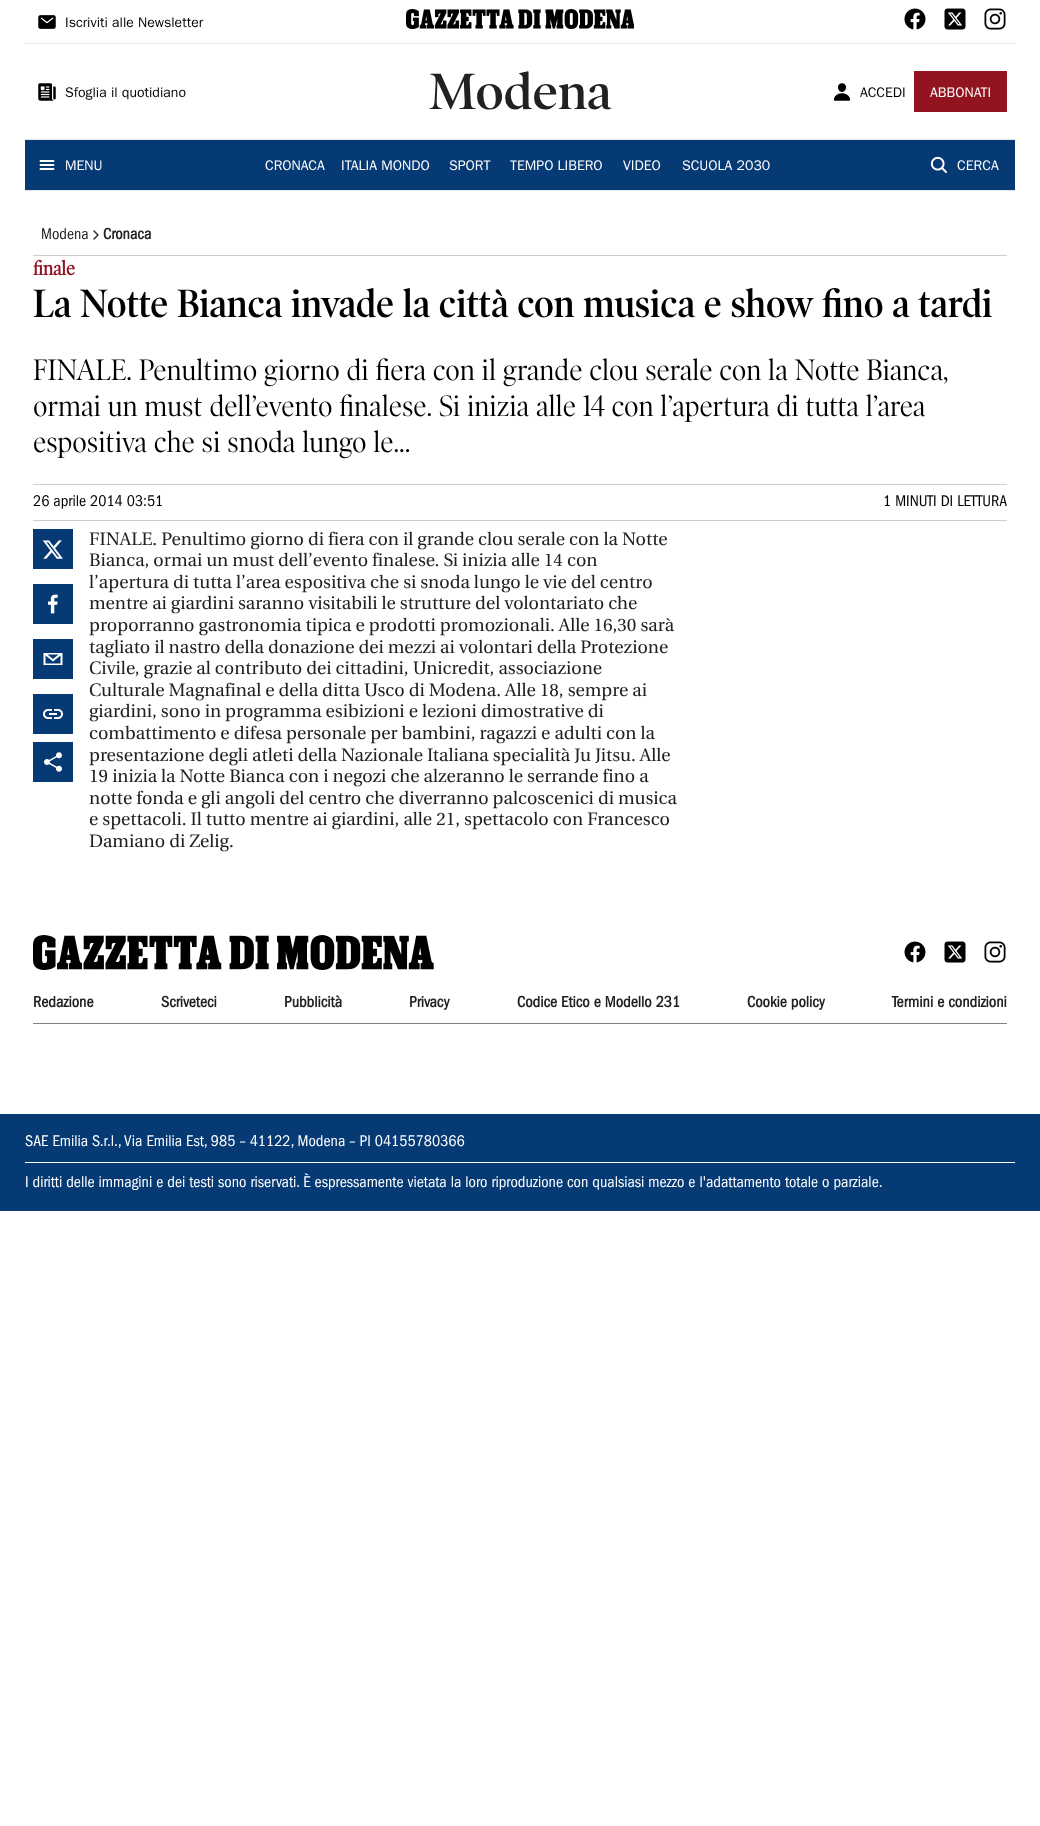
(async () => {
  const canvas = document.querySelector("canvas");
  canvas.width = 1040;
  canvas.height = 1826;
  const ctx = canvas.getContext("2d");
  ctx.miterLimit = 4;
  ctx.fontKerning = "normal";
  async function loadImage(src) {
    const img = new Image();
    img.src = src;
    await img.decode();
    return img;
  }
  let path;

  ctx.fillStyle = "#ffffff";
  ctx.fillRect(0, 0, 1040, 1826);
  ctx.fillStyle = "#e6e6e6";
  ctx.fillRect(25, 43, 990, 1);
  ctx.drawImage(await loadImage("img/1.png"), 38, 15, 18, 14);
  ctx.drawImage(await loadImage("img/2.png"), 406, 9, 228, 20);
  ctx.drawImage(await loadImage("img/3.png"), 904, 8, 22, 22);
  ctx.drawImage(await loadImage("img/4.png"), 944, 8, 22, 22);
  ctx.drawImage(await loadImage("img/5.png"), 984, 8, 22, 22);
  ctx.fillRect(25, 139, 990, 1);
  ctx.drawImage(await loadImage("img/6.png"), 38, 83, 18, 18);
  ctx.drawImage(await loadImage("img/7.png"), 833, 83, 18, 18);
  for (const [x, y, w, h, color] of [
    [914, 71, 93, 41, "#921421"],
    [25, 140, 990, 50, "#063a74"],
    [25, 190, 990, 1, "#e6e6e6"],
  ]) {
    ctx.fillStyle = color;
    ctx.fillRect(x, y, w, h);
  }
  path = new Path2D("M40.5 161H53.5M40.5 165H53.5M40.5 169H53.5");
  ctx.strokeStyle = "#ffffff";
  ctx.lineWidth = 1.9;
  ctx.lineCap = "round";
  ctx.stroke(path);
  ctx.drawImage(await loadImage("img/8.png"), 930, 156, 17, 17);
  ctx.fillStyle = "#cbcfd3";
  ctx.fillRect(33, 255, 974, 1);
  path = new Path2D("M94 231L98 235L94 239");
  ctx.strokeStyle = "#212121";
  ctx.lineWidth = 1.3;
  ctx.lineJoin = "round";
  ctx.stroke(path);
  ctx.fillRect(33, 484, 974, 1);
  ctx.fillRect(33, 520, 974, 1);
  ctx.drawImage(await loadImage("img/9.png"), 33, 529, 40, 40);
  ctx.drawImage(await loadImage("img/10.png"), 33, 584, 40, 40);
  ctx.fillStyle = "#063a74";
  ctx.fillRect(33, 639, 40, 40);
  ctx.fillStyle = "#ffffff";
  path = new Path2D("M43.5 653V665H62.5V653ZM58.5 654.5L53 659L47.5 654.5ZM45.5 663.5V655.5L53 661.5L60.5 655.5V663.5Z");
  ctx.fill(path);
  ctx.fillStyle = "#063a74";
  ctx.fillRect(33, 694, 40, 40);
  ctx.drawImage(await loadImage("img/11.png"), 43, 709, 20, 10);
  ctx.fillRect(33, 742, 40, 40);
  ctx.drawImage(await loadImage("img/12.png"), 44, 752, 18, 20);
  ctx.drawImage(await loadImage("img/13.png"), 33, 935, 401, 35);
  ctx.drawImage(await loadImage("img/3.png"), 904, 941, 22, 22);
  ctx.drawImage(await loadImage("img/4.png"), 944, 941, 22, 22);
  ctx.drawImage(await loadImage("img/5.png"), 984, 941, 22, 22);
  for (const [x, y, w, h, color] of [
    [33, 1023, 974, 1, "#808080"],
    [0, 1114, 1040, 97, "#063a74"],
    [25, 1162, 990, 1, "#ffffff"],
  ]) {
    ctx.fillStyle = color;
    ctx.fillRect(x, y, w, h);
  }
  ctx.font = "14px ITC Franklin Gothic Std";
  ctx.fillStyle = "#000000";
  ctx.fillText("Iscriviti alle Newsletter", 65, 27);
  ctx.fillText("Sfoglia il quotidiano", 65, 97);
  ctx.font = "600 51.5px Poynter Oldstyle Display";
  ctx.fillStyle = "#212121";
  ctx.fillText("Modena", 429, 109);
  ctx.font = "14px ITC Franklin Gothic Std";
  ctx.fillStyle = "#000000";
  ctx.fillText("ACCEDI", 860, 97);
  ctx.fillStyle = "#ffffff";
  for (const [text, x, y] of [
    ["ABBONATI", 930, 97],
    ["MENU", 65, 170],
    ["CRONACA", 265, 170],
    ["ITALIA MONDO", 341, 170],
    ["SPORT", 449, 170],
    ["TEMPO LIBERO", 510, 170],
    ["VIDEO", 623, 170],
    ["SCUOLA 2030", 682, 170],
    ["CERCA", 957, 170],
  ]) {
    ctx.fillText(text, x, y);
  }
  ctx.font = "16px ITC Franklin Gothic";
  ctx.fillStyle = "#212121";
  ctx.fillText("Modena", 41, 239);
  ctx.font = "bold 16px ITC Franklin Gothic";
  ctx.fillText("Cronaca", 103, 239);
  ctx.font = "bold 20px Poynter Oldstyle Display";
  ctx.fillStyle = "#921421";
  ctx.fillText("finale", 33, 275);
  ctx.font = "600 40px 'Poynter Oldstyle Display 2'";
  ctx.fillStyle = "#000000";
  ctx.fillText("La Notte Bianca invade la città con musica e show fino a tardi", 33, 317);
  ctx.font = "30px Poynter Oldstyle Display";
  for (const [text, x, y] of [
    ["FINALE. Penultimo giorno di fiera con il grande clou serale con la Notte Bianca,", 33, 380],
    ["ormai un must dell’evento finalese. Si inizia alle 14 con l’apertura di tutta l’area", 33, 416],
    ["espositiva che si snoda lungo le...", 33, 452],
  ]) {
    ctx.fillText(text, x, y);
  }
  ctx.font = "16px ITC Franklin Gothic";
  ctx.fillText("26 aprile 2014 03:51", 33, 506);
  ctx.fillText("1 MINUTI DI LETTURA", 883, 506);
  ctx.font = "18px Utopia";
  ctx.fillStyle = "#212121";
  for (const [text, x, y] of [
    ["FINALE. Penultimo giorno di fiera con il grande clou serale con la Notte", 89, 545],
    ["Bianca, ormai un must dell’evento finalese. Si inizia alle 14 con", 89, 566],
    ["l’apertura di tutta l’area espositiva che si snoda lungo le vie del centro", 89, 588],
    ["mentre ai giardini saranno visitabili le strutture del volontariato che", 89, 609],
    ["proporranno gastronomia tipica e prodotti promozionali. Alle 16,30 sarà", 89, 631],
    ["tagliato il nastro della donazione dei mezzi ai volontari della Protezione", 89, 653],
    ["Civile, grazie al contributo dei cittadini, Unicredit, associazione", 89, 674],
    ["Culturale Magnafinal e della ditta Usco di Modena. Alle 18, sempre ai", 89, 696],
    ["giardini, sono in programma esibizioni e lezioni dimostrative di", 89, 717],
    ["combattimento e difesa personale per bambini, ragazzi e adulti con la", 89, 739],
    ["presentazione degli atleti della Nazionale Italiana specialità Ju Jitsu. Alle", 89, 761],
    ["19 inizia la Notte Bianca con i negozi che alzeranno le serrande fino a", 89, 782],
    ["notte fonda e gli angoli del centro che diverranno palcoscenici di musica", 89, 804],
    ["e spettacoli. Il tutto mentre ai giardini, alle 21, spettacolo con Francesco", 89, 825],
    ["Damiano di Zelig.", 89, 847],
  ]) {
    ctx.fillText(text, x, y);
  }
  ctx.font = "bold 16px ITC Franklin Gothic";
  for (const [text, x, y] of [
    ["Redazione", 33, 1007],
    ["Scriveteci", 161, 1007],
    ["Pubblicità", 284, 1007],
    ["Privacy", 409, 1007],
    ["Codice Etico e Modello 231", 517, 1007],
    ["Cookie policy", 747, 1007],
    ["Termini e condizioni", 892, 1007],
  ]) {
    ctx.fillText(text, x, y);
  }
  ctx.font = "16px ITC Franklin Gothic";
  ctx.fillStyle = "#ffffff";
  ctx.fillText("SAE Emilia S.r.l., Via Emilia Est, 985 – 41122, Modena – PI 04155780366", 25, 1146);
  ctx.fillText("I diritti delle immagini e dei testi sono riservati. È espressamente vietata la loro riproduzione con qualsiasi mezzo e l'adattamento totale o parziale.", 25, 1187);
})();
